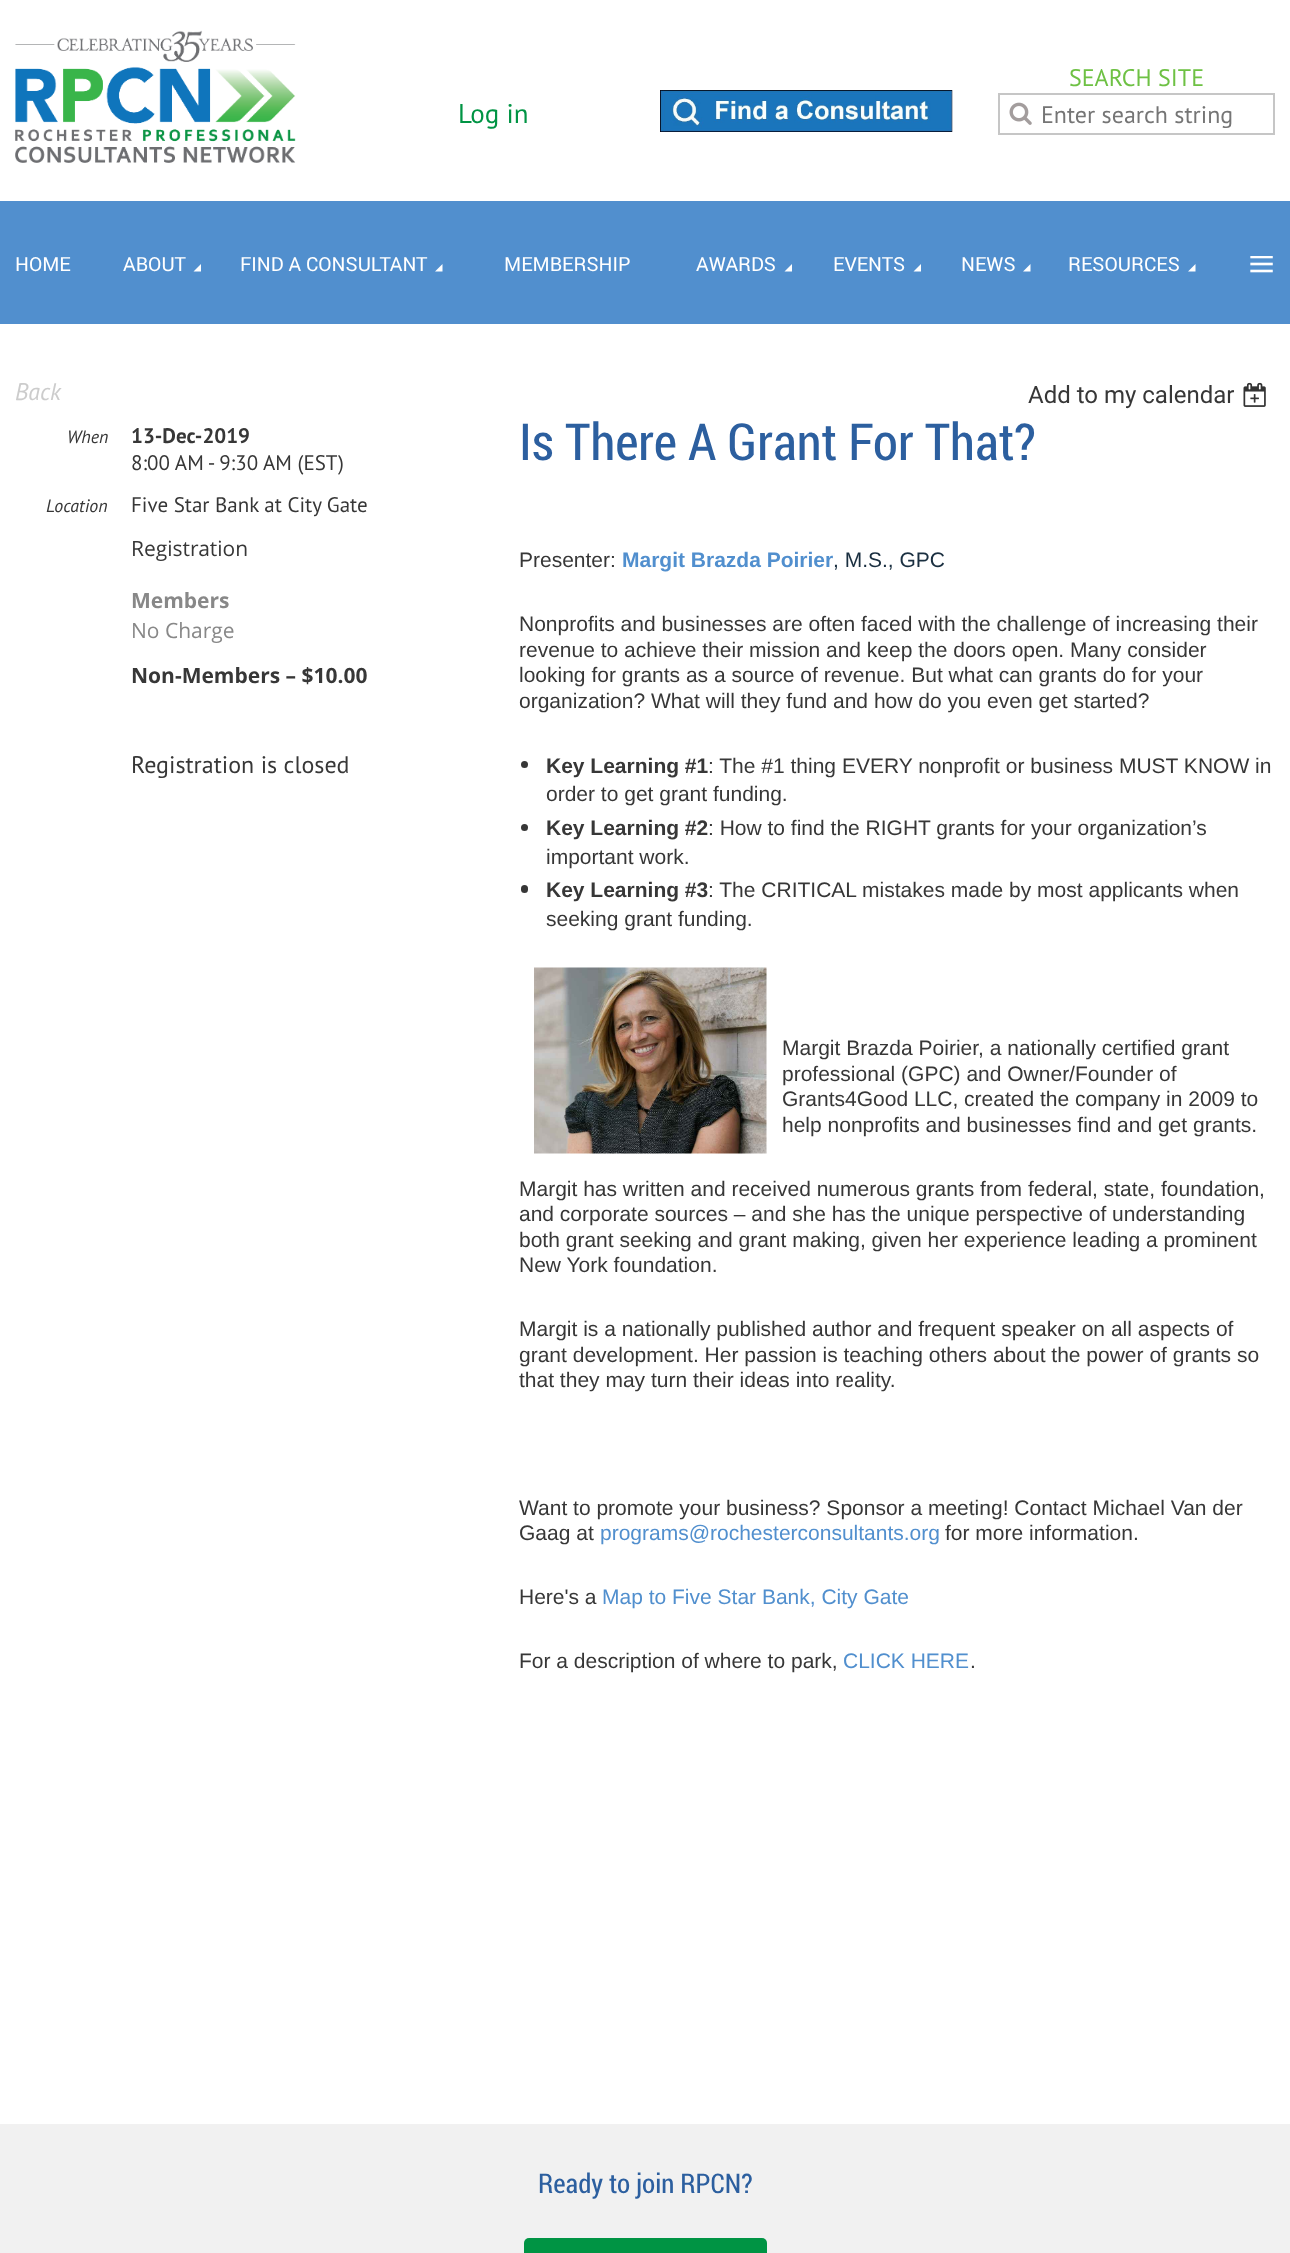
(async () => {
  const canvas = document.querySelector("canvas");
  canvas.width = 1290;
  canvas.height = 2253;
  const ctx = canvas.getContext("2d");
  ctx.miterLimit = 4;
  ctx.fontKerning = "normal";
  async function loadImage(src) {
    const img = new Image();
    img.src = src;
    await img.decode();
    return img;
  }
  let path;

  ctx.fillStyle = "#ffffff";
  ctx.fillRect(0, 0, 1290, 2253);
  ctx.drawImage(await loadImage("img/1.png"), 15, 30, 281, 133);
  ctx.drawImage(await loadImage("img/2.png"), 660, 90, 293, 42);
  ctx.strokeStyle = "#c6c6c6";
  ctx.lineWidth = 2;
  ctx.strokeRect(999, 94, 275, 40);
  ctx.drawImage(await loadImage("img/3.png"), 1009, 102, 23, 23);
  ctx.fillStyle = "#518fce";
  ctx.fillRect(0, 201, 1290, 123);
  ctx.fillStyle = "#ffffff";
  path = new Path2D("M201 271.5H193.5L201 264Z");
  ctx.fill(path);
  path = new Path2D("M442.5 271.5H435L442.5 264Z");
  ctx.fill(path);
  path = new Path2D("M792 271.5H784.5L792 264Z");
  ctx.fill(path);
  path = new Path2D("M921 271.5H913.5L921 264Z");
  ctx.fill(path);
  path = new Path2D("M1030.5 271.5H1023L1030.5 264Z");
  ctx.fill(path);
  path = new Path2D("M1195.5 271.5H1188L1195.5 264Z");
  ctx.fill(path);
  ctx.drawImage(await loadImage("img/4.png"), 1243, 382, 23, 25);
  ctx.fillStyle = "#373737";
  ctx.beginPath();
  ctx.arc(524.5, 764.5, 3.5, 0, Math.PI * 2);
  ctx.fill();
  ctx.beginPath();
  ctx.arc(524.5, 827.5, 3.5, 0, Math.PI * 2);
  ctx.fill();
  ctx.beginPath();
  ctx.roundRect(521, 885, 7, 8, 3.5);
  ctx.fill();
  ctx.drawImage(await loadImage("img/5.png"), 534, 967, 233, 187);
  ctx.fillStyle = "#f1f1f1";
  ctx.fillRect(0, 2124, 1290, 129);
  ctx.fillStyle = "#009444";
  ctx.beginPath();
  ctx.roundRect(524, 2238, 243, 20, 5);
  ctx.fill();
  ctx.font = "27px PT Sans";
  ctx.fillText("Log in", 458, 123);
  ctx.font = "24px PT Sans";
  ctx.fillStyle = "#6ec144";
  ctx.fillText("SEARCH SITE", 1069, 86);
  ctx.fillStyle = "#757575";
  ctx.fillText("Enter search string", 1041, 123);
  ctx.font = "19.5px Roboto";
  ctx.fillStyle = "#ffffff";
  for (const [text, x, y] of [
    ["HOME", 15, 271],
    ["ABOUT", 123, 271],
    ["FIND A CONSULTANT", 240, 271],
    ["MEMBERSHIP", 504, 271],
    ["AWARDS", 696, 271],
    ["EVENTS", 833, 271],
    ["NEWS", 961, 271],
    ["RESOURCES", 1068, 271],
  ]) {
    ctx.fillText(text, x, y);
  }
  ctx.font = "48px Liberation Serif";
  ctx.fillText("≡", 1248, 280);
  ctx.font = "italic 24px PT Sans";
  ctx.fillStyle = "#cccccc";
  ctx.fillText("Back", 15, 400);
  ctx.font = "24px 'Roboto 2'";
  ctx.fillStyle = "#373737";
  ctx.fillText("Add to my calendar", 1028, 403);
  ctx.font = "51px Roboto Condensed";
  ctx.fillStyle = "#2c5f9f";
  ctx.fillText("Is There A Grant For That?", 519, 460);
  ctx.font = "italic 18px PT Sans";
  ctx.fillStyle = "#373737";
  ctx.fillText("When", 67, 443);
  ctx.font = "bold 21px PT Sans";
  ctx.fillText("13-Dec-2019", 131, 443);
  ctx.font = "21px PT Sans";
  ctx.fillText("8:00 AM - 9:30 AM (EST)", 131, 470);
  ctx.font = "italic 18px PT Sans";
  ctx.fillText("Location", 46, 512);
  ctx.font = "21px PT Sans";
  ctx.fillText("Five Star Bank at City Gate", 131, 512);
  ctx.font = "21px Open Sans";
  ctx.fillText("Registration", 131, 556);
  ctx.font = "bold 21px Open Sans";
  ctx.fillStyle = "#888888";
  ctx.fillText("Members", 131, 608);
  ctx.font = "21px Open Sans";
  ctx.fillText("No Charge", 131, 638);
  ctx.font = "bold 21px Open Sans";
  ctx.fillStyle = "#373737";
  ctx.fillText("Non-Members – $10.00", 131, 683);
  ctx.font = "24px PT Sans";
  ctx.fillText("Registration is closed", 131, 773);
  ctx.font = "21px Liberation Sans";
  ctx.fillText("Presenter:", 519, 567);
  ctx.font = "bold 21px Liberation Sans";
  ctx.fillStyle = "#518fce";
  ctx.fillText("Margit Brazda Poirier", 622, 567);
  ctx.font = "21px Liberation Sans";
  ctx.fillStyle = "#1a2f40";
  ctx.fillText(", M.S., GPC", 833, 567);
  ctx.fillStyle = "#373737";
  for (const [text, x, y] of [
    ["Nonprofits and businesses are often faced with the challenge of increasing their", 519, 631],
    ["revenue to achieve their mission and keep the doors open. Many consider", 519, 657],
    ["looking for grants as a source of revenue. But what can grants do for your", 519, 682],
    ["organization? What will they fund and how do you even get started?", 519, 708],
  ]) {
    ctx.fillText(text, x, y);
  }
  ctx.font = "bold 21px Liberation Sans";
  ctx.fillText("Key Learning #1", 546, 773);
  ctx.font = "21px Liberation Sans";
  ctx.fillText(": The #1 thing EVERY nonprofit or business MUST KNOW in", 708, 773);
  ctx.fillText("order to get grant funding.", 546, 801);
  ctx.font = "bold 21px Liberation Sans";
  ctx.fillText("Key Learning #2", 546, 835);
  ctx.font = "21px Liberation Sans";
  ctx.fillText(": How to find the RIGHT grants for your organization’s", 708, 835);
  ctx.fillText("important work.", 546, 864);
  ctx.font = "bold 21px Liberation Sans";
  ctx.fillText("Key Learning #3", 546, 897);
  ctx.font = "21px Liberation Sans";
  for (const [text, x, y] of [
    [": The CRITICAL mistakes made by most applicants when", 708, 897],
    ["seeking grant funding.", 546, 926],
    ["Margit Brazda Poirier, a nationally certified grant", 782, 1055],
    ["professional (GPC) and Owner/Founder of", 782, 1081],
    ["Grants4Good LLC, created the company in 2009 to", 782, 1106],
    ["help nonprofits and businesses find and get grants.", 782, 1132],
    ["Margit has written and received numerous grants from federal, state, foundation,", 519, 1196],
    ["and corporate sources – and she has the unique perspective of understanding", 519, 1221],
    ["both grant seeking and grant making, given her experience leading a prominent", 519, 1247],
    ["New York foundation.", 519, 1272],
    ["Margit is a nationally published author and frequent speaker on all aspects of", 519, 1336],
    ["grant development. Her passion is teaching others about the power of grants so", 519, 1362],
    ["that they may turn their ideas into reality.", 519, 1387],
    ["Want to promote your business? Sponsor a meeting! Contact Michael Van der", 519, 1515],
    ["Gaag at", 519, 1540],
  ]) {
    ctx.fillText(text, x, y);
  }
  ctx.fillStyle = "#518fce";
  ctx.fillText("programs@rochesterconsultants.org", 600, 1540);
  ctx.fillStyle = "#373737";
  ctx.fillText("for more information.", 945, 1540);
  ctx.fillText("Here's a", 519, 1604);
  ctx.fillStyle = "#518fce";
  ctx.fillText("Map to Five Star Bank, City Gate", 602, 1604);
  ctx.fillStyle = "#373737";
  ctx.fillText("For a description of where to park,", 519, 1668);
  ctx.fillStyle = "#518fce";
  ctx.fillText("CLICK HERE", 843, 1668);
  ctx.fillStyle = "#373737";
  ctx.fillText(".", 970, 1668);
  ctx.font = "27px Roboto Condensed";
  ctx.fillStyle = "#2c5f9f";
  ctx.fillText("Ready to join RPCN?", 538, 2193);
})();
